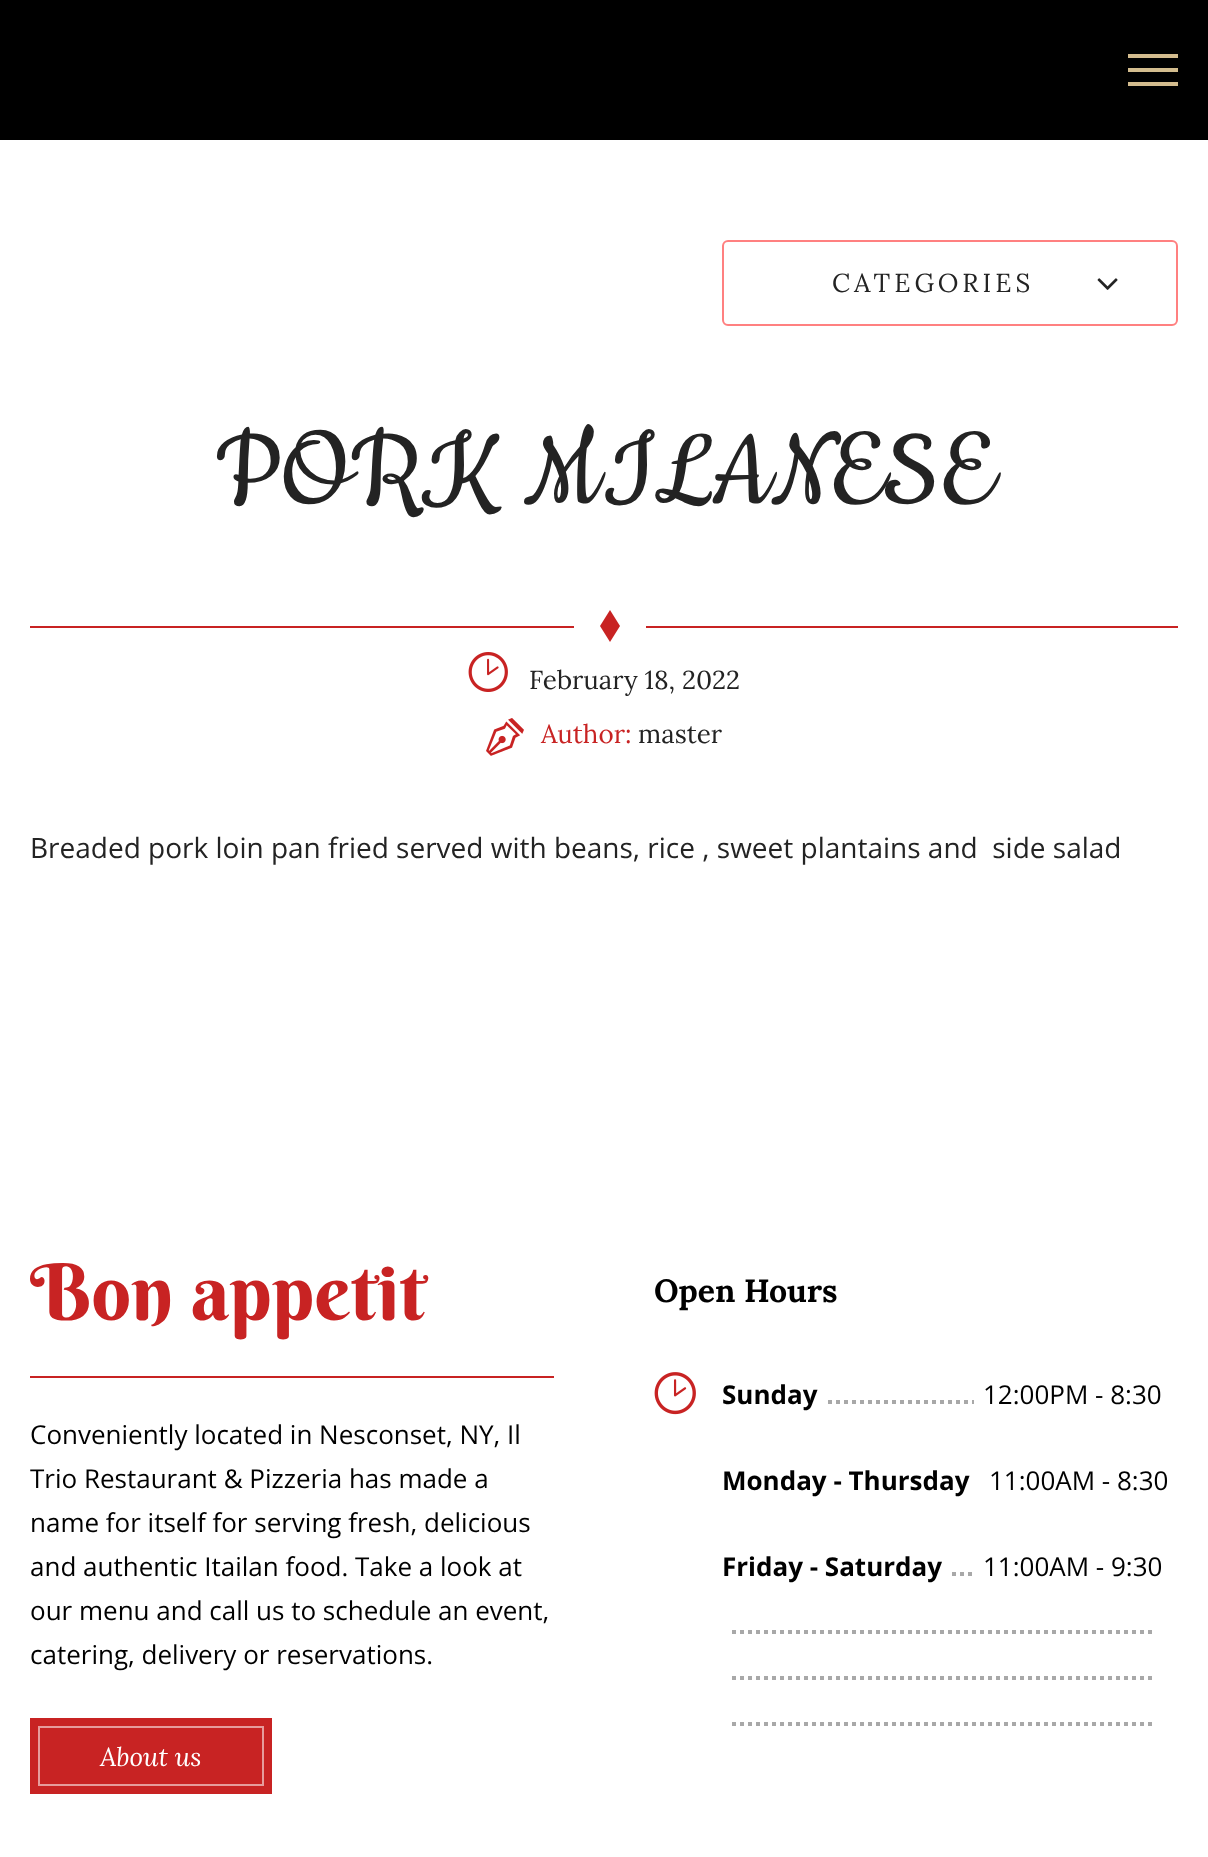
(async () => {
  const canvas = document.querySelector("canvas");
  canvas.width = 1208;
  canvas.height = 1857;
  const ctx = canvas.getContext("2d");
  ctx.miterLimit = 4;
  ctx.fontKerning = "normal";
  async function loadImage(src) {
    const img = new Image();
    img.src = src;
    await img.decode();
    return img;
  }
  let path;

  ctx.fillStyle = "#ffffff";
  ctx.fillRect(0, 0, 1208, 1857);
  for (const [x, y, w, h, color] of [
    [0, 0, 1208, 140, "#000000"],
    [1128, 54, 50, 4, "#d3bc8e"],
    [1128, 68, 50, 4, "#d3bc8e"],
    [1128, 82, 50, 4, "#d3bc8e"],
  ]) {
    ctx.fillStyle = color;
    ctx.fillRect(x, y, w, h);
  }
  ctx.beginPath();
  ctx.roundRect(723, 241, 454, 84, 5);
  ctx.strokeStyle = "#ff8080";
  ctx.lineWidth = 2;
  ctx.stroke();
  ctx.drawImage(await loadImage("img/1.png"), 1097, 278, 21, 12);
  ctx.fillStyle = "#c82323";
  ctx.fillRect(30, 626, 544, 2);
  path = new Path2D("M610 610L600 626L610 642L620 626Z");
  ctx.fill(path);
  ctx.fillRect(646, 626, 532, 2);
  ctx.drawImage(await loadImage("img/2.png"), 468, 652, 40, 40);
  ctx.drawImage(await loadImage("img/3.png"), 486, 718, 38, 38);
  ctx.fillRect(30, 1376, 524, 2);
  ctx.beginPath();
  ctx.rect(39, 1727, 224, 58);
  ctx.fill();
  ctx.strokeStyle = "#e69c9c";
  ctx.stroke();
  ctx.strokeStyle = "#c82323";
  ctx.lineWidth = 8;
  ctx.strokeRect(34, 1722, 234, 68);
  ctx.drawImage(await loadImage("img/4.png"), 654, 1372, 42, 43);
  path = new Path2D("M828 1402H974");
  ctx.strokeStyle = "#a8a8a8";
  ctx.lineWidth = 4;
  ctx.setLineDash([4, 4]);
  ctx.stroke(path);
  path = new Path2D("M952 1574H956M960 1574H964M968 1574H972");
  ctx.setLineDash([]);
  ctx.stroke(path);
  path = new Path2D("M732 1632H1152");
  ctx.setLineDash([4, 4]);
  ctx.stroke(path);
  path = new Path2D("M732 1678H1152");
  ctx.stroke(path);
  path = new Path2D("M732 1724H1152");
  ctx.stroke(path);
  ctx.letterSpacing = "4px";
  ctx.font = "26px Lora";
  ctx.fillStyle = "#232323";
  ctx.fillText("CATEGORIES", 832, 292);
  ctx.letterSpacing = "0px";
  ctx.font = "120px Cookie";
  ctx.fillText("PORK MILANESE", 215, 503);
  ctx.font = "26px Lora";
  ctx.fillText("February 18, 2022", 529, 689);
  ctx.fillStyle = "#c82323";
  ctx.fillText("Author:", 541, 743);
  ctx.fillStyle = "#232323";
  ctx.fillText("master", 638, 743);
  ctx.font = "28px Open Sans";
  ctx.fillText("Breaded pork loin pan fried served with beans, rice , sweet plantains and  side salad", 30, 858);
  ctx.font = "78px Berkshire Swash";
  ctx.fillStyle = "#c82323";
  ctx.fillText("Bon appetit", 30, 1320);
  ctx.font = "26px Open Sans";
  ctx.fillStyle = "#000000";
  for (const [text, x, y] of [
    ["Conveniently located in Nesconset, NY, Il", 30, 1444],
    ["Trio Restaurant & Pizzeria has made a", 30, 1488],
    ["name for itself for serving fresh, delicious", 30, 1532],
    ["and authentic Itailan food. Take a look at", 30, 1576],
    ["our menu and call us to schedule an event,", 30, 1620],
    ["catering, delivery or reservations.", 30, 1664],
  ]) {
    ctx.fillText(text, x, y);
  }
  ctx.font = "italic 26px Lora";
  ctx.fillStyle = "#ffffff";
  ctx.fillText("About us", 100, 1766);
  ctx.font = "bold 32px Lora";
  ctx.fillStyle = "#000000";
  ctx.fillText("Open Hours", 654, 1302);
  ctx.font = "bold 26px Open Sans";
  ctx.fillText("Sunday", 722, 1404);
  ctx.font = "26px Open Sans";
  ctx.fillText("12:00PM - 8:30", 983, 1404);
  ctx.font = "bold 26px Open Sans";
  ctx.fillText("Monday - Thursday", 722, 1490);
  ctx.font = "26px Open Sans";
  ctx.fillText("11:00AM - 8:30", 989, 1490);
  ctx.font = "bold 26px Open Sans";
  ctx.fillText("Friday - Saturday", 722, 1576);
  ctx.font = "26px Open Sans";
  ctx.fillText("11:00AM - 9:30", 983, 1576);
})();
